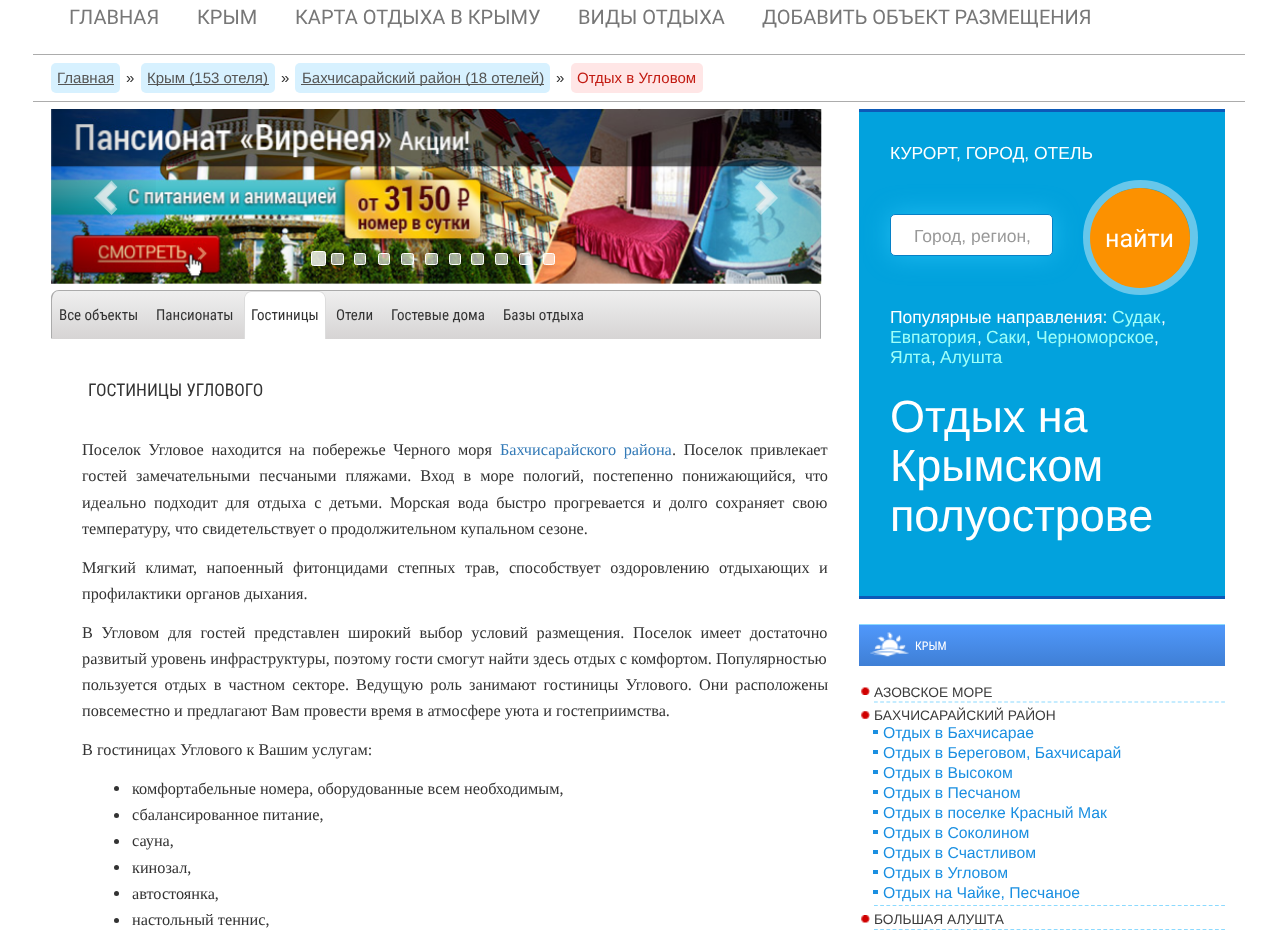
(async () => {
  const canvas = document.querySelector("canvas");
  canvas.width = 1276;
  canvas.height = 930;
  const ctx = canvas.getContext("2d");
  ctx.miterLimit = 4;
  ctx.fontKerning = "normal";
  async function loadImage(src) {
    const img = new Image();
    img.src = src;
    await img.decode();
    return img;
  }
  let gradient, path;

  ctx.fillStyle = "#ffffff";
  ctx.fillRect(0, 0, 1276, 930);
  ctx.fillStyle = "#acacac";
  ctx.fillRect(33, 54, 1212, 1);
  ctx.fillRect(33, 101, 1212, 1);
  ctx.fillStyle = "#d7f1ff";
  ctx.beginPath();
  ctx.roundRect(51, 63, 69, 30, 5);
  ctx.fill();
  ctx.fillStyle = "#565655";
  ctx.fillRect(58, 84, 56, 1);
  ctx.fillStyle = "#d7f1ff";
  ctx.beginPath();
  ctx.roundRect(141, 63, 134, 30, 5);
  ctx.fill();
  ctx.fillStyle = "#565655";
  ctx.fillRect(148, 84, 121, 1);
  ctx.fillStyle = "#d7f1ff";
  ctx.beginPath();
  ctx.roundRect(295, 63, 255, 30, 5);
  ctx.fill();
  ctx.fillStyle = "#565655";
  ctx.fillRect(301, 84, 243, 1);
  ctx.fillStyle = "#ffe6e6";
  ctx.beginPath();
  ctx.roundRect(571, 63, 132, 30, 5);
  ctx.fill();
  ctx.drawImage(await loadImage("img/1.png"), 51, 109, 771, 175);
  gradient = ctx.createLinearGradient(51, 196, 166, 196);
  gradient.addColorStop(0, "rgba(0, 0, 0, 0.25)");
  gradient.addColorStop(1, "rgba(0, 0, 0, 0)");
  ctx.fillStyle = gradient;
  ctx.fillRect(51, 109, 105, 175);
  ctx.fillStyle = "rgba(255, 255, 255, 0.5)";
  path = new Path2D("M117.5 187L106.5 198L117.5 209L111.5 215L94 198L111.5 180.5Z");
  ctx.fill(path);
  ctx.fillStyle = "rgba(255, 255, 255, 0.8)";
  ctx.beginPath();
  ctx.roundRect(311.5, 251.5, 14, 14, 2);
  ctx.fill();
  ctx.strokeStyle = "#ffffff";
  ctx.stroke();
  ctx.fillStyle = "rgba(255, 255, 255, 0.6)";
  ctx.beginPath();
  ctx.roundRect(331.5, 253.5, 12, 11, 2);
  ctx.fill();
  ctx.stroke();
  ctx.beginPath();
  ctx.roundRect(354.5, 253.5, 11, 11, 2);
  ctx.fill();
  ctx.stroke();
  ctx.beginPath();
  ctx.roundRect(378.5, 253.5, 11, 11, 2);
  ctx.fill();
  ctx.stroke();
  ctx.beginPath();
  ctx.roundRect(401.5, 253.5, 12, 11, 2);
  ctx.fill();
  ctx.stroke();
  ctx.beginPath();
  ctx.roundRect(425.5, 253.5, 12, 11, 2);
  ctx.fill();
  ctx.stroke();
  ctx.beginPath();
  ctx.roundRect(449.5, 253.5, 11, 11, 2);
  ctx.fill();
  ctx.stroke();
  ctx.beginPath();
  ctx.roundRect(471.5, 253.5, 12, 11, 2);
  ctx.fill();
  ctx.stroke();
  ctx.beginPath();
  ctx.roundRect(495.5, 253.5, 12, 11, 2);
  ctx.fill();
  ctx.stroke();
  ctx.beginPath();
  ctx.roundRect(519.5, 253.5, 11, 11, 2);
  ctx.fill();
  ctx.stroke();
  ctx.beginPath();
  ctx.roundRect(543.5, 253.5, 11, 11, 2);
  ctx.fill();
  ctx.stroke();
  gradient = ctx.createLinearGradient(706, 196, 821, 196);
  gradient.addColorStop(0, "rgba(0, 0, 0, 0)");
  gradient.addColorStop(1, "rgba(0, 0, 0, 0.25)");
  ctx.fillStyle = gradient;
  ctx.fillRect(716, 109, 105, 175);
  ctx.fillStyle = "rgba(255, 255, 255, 0.5)";
  path = new Path2D("M778 198L761 215L755 209L766 198L755 187L761 180.5Z");
  ctx.fill(path);
  gradient = ctx.createLinearGradient(436, 339, 436, 291);
  gradient.addColorStop(0, "#d6d4d4");
  gradient.addColorStop(1, "#efefef");
  ctx.fillStyle = gradient;
  path = new Path2D("M59 291H814C817 291 820 294 820 298V339H52V304C52 299 52 291 59 291Z");
  ctx.fill(path);
  ctx.fillStyle = "#ababab";
  path = new Path2D("M59 290H814C818 290 821 293 821 298V338C821 338 821 339 820 339H52C52 339 51 338 51 338V298C51 293 55 290 59 290ZM59 291H814C817 291 820 294 820 298V339H52V304C52 299 52 291 59 291Z");
  ctx.fill(path, "evenodd");
  ctx.fillStyle = "#ffffff";
  ctx.beginPath();
  ctx.roundRect(244, 291, 82, 48, [8, 8, 0, 0]);
  ctx.fill();
  ctx.fillStyle = "#dddddd";
  path = new Path2D("M251 291H319C323 291 326 295 326 299V339H244V299C244 295 247 291 251 291ZM251 292H319C322 292 325 295 325 299V339H245V299C245 295 248 292 251 292Z");
  ctx.fill(path, "evenodd");
  ctx.fillStyle = "#333333";
  ctx.beginPath();
  ctx.arc(116.5, 788.5, 2.5, 0, Math.PI * 2);
  ctx.fill();
  ctx.beginPath();
  ctx.arc(116.5, 815.5, 2.5, 0, Math.PI * 2);
  ctx.fill();
  ctx.beginPath();
  ctx.arc(116.5, 841.5, 2.5, 0, Math.PI * 2);
  ctx.fill();
  ctx.beginPath();
  ctx.arc(116.5, 867.5, 2.5, 0, Math.PI * 2);
  ctx.fill();
  ctx.beginPath();
  ctx.arc(116.5, 893.5, 2.5, 0, Math.PI * 2);
  ctx.fill();
  ctx.beginPath();
  ctx.arc(116.5, 920.5, 2.5, 0, Math.PI * 2);
  ctx.fill();
  for (const [x, y, w, h, color] of [
    [859, 112, 366, 484, "#02a2dd"],
    [859, 109, 366, 3, "#0d59b8"],
    [859, 596, 366, 3, "#0d59b8"],
  ]) {
    ctx.fillStyle = color;
    ctx.fillRect(x, y, w, h);
  }
  ctx.fillStyle = "rgba(53, 205, 255, 0.57)";
  ctx.filter = "blur(13px)";
  ctx.beginPath();
  ctx.roundRect(890, 214, 163, 42, 5);
  ctx.fill();
  ctx.filter = "none";
  ctx.fillStyle = "#ffffff";
  ctx.beginPath();
  ctx.roundRect(890.5, 214.5, 162, 41, 4.5);
  ctx.fill();
  ctx.strokeStyle = "#0680c6";
  ctx.stroke();
  ctx.beginPath();
  ctx.arc(1140.5, 237.5, 53.5, 0, Math.PI * 2);
  ctx.strokeStyle = "#67c7eb";
  ctx.lineWidth = 8;
  ctx.stroke();
  ctx.fillStyle = "#fc9100";
  ctx.beginPath();
  ctx.arc(1140, 238, 50, 0, Math.PI * 2);
  ctx.fill();
  gradient = ctx.createLinearGradient(1042, 666, 1042, 625);
  gradient.addColorStop(0, "#3f7fd5");
  gradient.addColorStop(1, "#5098fb");
  ctx.fillStyle = gradient;
  ctx.fillRect(859, 625, 366, 41);
  ctx.fillStyle = "#8bdaff";
  ctx.fillRect(859, 624, 366, 1);
  ctx.drawImage(await loadImage("img/2.png"), 870, 632, 39, 25);
  path = new Path2D("M874 702H1225");
  ctx.strokeStyle = "#8bdaff";
  ctx.lineWidth = 1.2;
  ctx.setLineDash([3.75, 2.45]);
  ctx.stroke(path);
  ctx.drawImage(await loadImage("img/3.png"), 861, 687, 9, 8);
  path = new Path2D("M874 905.5H1225");
  ctx.stroke(path);
  ctx.drawImage(await loadImage("img/4.png"), 861, 711, 9, 8);
  for (const [x, y, w, h, color] of [
    [873, 730, 5, 4, "#1a8fe1"],
    [873, 750, 5, 4, "#1a8fe1"],
    [873, 770, 5, 4, "#1a8fe1"],
    [873, 790, 5, 4, "#1a8fe1"],
    [873, 810, 5, 4, "#1a8fe1"],
    [873, 830, 5, 4, "#1a8fe1"],
    [873, 850, 5, 4, "#1a8fe1"],
    [873, 870, 5, 4, "#1a8fe1"],
    [873, 890, 5, 4, "#1a8fe1"],
  ]) {
    ctx.fillStyle = color;
    ctx.fillRect(x, y, w, h);
  }
  path = new Path2D("M874 929.5H1225");
  ctx.stroke(path);
  ctx.drawImage(await loadImage("img/5.png"), 861, 915, 9, 8);
  ctx.font = "20px Roboto";
  ctx.fillStyle = "#777777";
  for (const [text, x, y] of [
    ["ГЛАВНАЯ", 69, 24],
    ["КРЫМ", 197, 24],
    ["КАРТА ОТДЫХА В КРЫМУ", 295, 24],
    ["ВИДЫ ОТДЫХА", 578, 24],
    ["ДОБАВИТЬ ОБЪЕКТ РАЗМЕЩЕНИЯ", 762, 24],
  ]) {
    ctx.fillText(text, x, y);
  }
  ctx.font = "15px Liberation Sans";
  ctx.fillStyle = "#565655";
  ctx.fillText("Главная", 57, 83);
  ctx.fillStyle = "#333333";
  ctx.fillText("»", 126, 83);
  ctx.fillStyle = "#565655";
  ctx.fillText("Крым (153 отеля)", 147, 83);
  ctx.fillStyle = "#333333";
  ctx.fillText("»", 281, 83);
  ctx.fillStyle = "#565655";
  ctx.fillText("Бахчисарайский район (18 отелей)", 302, 83);
  ctx.fillStyle = "#333333";
  ctx.fillText("»", 556, 83);
  ctx.fillStyle = "#c21b12";
  ctx.fillText("Отдых в Угловом", 577, 83);
  ctx.font = "15px Roboto Condensed";
  ctx.fillStyle = "#333333";
  for (const [text, x, y] of [
    ["Все объекты", 59, 320],
    ["Пансионаты", 156, 320],
    ["Гостиницы", 251, 320],
    ["Отели", 336, 320],
    ["Гостевые дома", 391, 320],
    ["Базы отдыха", 503, 320],
  ]) {
    ctx.fillText(text, x, y);
  }
  ctx.font = "17.5px Roboto Condensed";
  ctx.fillText("ГОСТИНИЦЫ УГЛОВОГО", 88, 396);
  ctx.wordSpacing = "3.5px";
  ctx.font = "16.25px Liberation Serif";
  ctx.fillText("Поселок Угловое находится на побережье Черного моря", 82, 455);
  ctx.fillStyle = "#337ab7";
  ctx.fillText("Бахчисарайского района", 500, 455);
  ctx.fillStyle = "#333333";
  ctx.fillText(". Поселок привлекает", 672, 455);
  ctx.wordSpacing = "5px";
  ctx.fillText("гостей замечательными песчаными пляжами. Вход в море пологий, постепенно понижающийся, что", 82, 481);
  ctx.wordSpacing = "3.75px";
  ctx.fillText("идеально подходит для отдыха с детьми. Морская вода быстро прогревается и долго сохраняет свою", 82, 508);
  ctx.wordSpacing = "0px";
  ctx.fillText("температуру, что свидетельствует о продолжительном купальном сезоне.", 82, 534);
  ctx.wordSpacing = "5.5px";
  ctx.fillText("Мягкий климат, напоенный фитонцидами степных трав, способствует оздоровлению отдыхающих и", 82, 573);
  ctx.wordSpacing = "0px";
  ctx.fillText("профилактики органов дыхания.", 82, 599);
  ctx.wordSpacing = "4.6px";
  ctx.fillText("В Угловом для гостей представлен широкий выбор условий размещения. Поселок имеет достаточно", 82, 638);
  ctx.wordSpacing = "0px";
  ctx.fillText("развитый уровень инфраструктуры, поэтому гости смогут найти здесь отдых с комфортом. Популярностью", 82, 664);
  ctx.wordSpacing = "3.1px";
  ctx.fillText("пользуется отдых в частном секторе. Ведущую роль занимают гостиницы Углового. Они расположены", 82, 690);
  ctx.wordSpacing = "0px";
  for (const [text, x, y] of [
    ["повсеместно и предлагают Вам провести время в атмосфере уюта и гостеприимства.", 82, 716],
    ["В гостиницах Углового к Вашим услугам:", 82, 755],
    ["комфортабельные номера, оборудованные всем необходимым,", 132, 794],
    ["сбалансированное питание,", 132, 820],
    ["сауна,", 132, 846],
    ["кинозал,", 132, 873],
    ["автостоянка,", 132, 899],
    ["настольный теннис,", 132, 925],
  ]) {
    ctx.fillText(text, x, y);
  }
  ctx.font = "17.5px Liberation Sans";
  ctx.fillStyle = "#ffffff";
  ctx.fillText("КУРОРТ, ГОРОД, ОТЕЛЬ", 890, 159);
  ctx.save();
  ctx.beginPath();
  ctx.rect(909, 225, 125, 20);
  ctx.clip();
  ctx.fillStyle = "#999999";
  ctx.fillText("Город, регион,", 914, 242);
  ctx.restore();
  ctx.font = "25px Roboto";
  ctx.fillText("найти", 1105, 247);
  ctx.font = "17.5px Liberation Sans";
  ctx.fillText("Популярные направления:", 890, 323);
  ctx.fillStyle = "#9efff9";
  ctx.fillText("Судак", 1112, 323);
  ctx.fillStyle = "#ffffff";
  ctx.fillText(",", 1161, 323);
  ctx.fillStyle = "#9efff9";
  ctx.fillText("Евпатория", 890, 343);
  ctx.fillStyle = "#ffffff";
  ctx.fillText(",", 977, 343);
  ctx.fillStyle = "#9efff9";
  ctx.fillText("Саки", 986, 343);
  ctx.fillStyle = "#ffffff";
  ctx.fillText(",", 1026, 343);
  ctx.fillStyle = "#9efff9";
  ctx.fillText("Черноморское", 1036, 343);
  ctx.fillStyle = "#ffffff";
  ctx.fillText(",", 1154, 343);
  ctx.fillStyle = "#9efff9";
  ctx.fillText("Ялта", 890, 363);
  ctx.fillStyle = "#ffffff";
  ctx.fillText(",", 931, 363);
  ctx.fillStyle = "#9efff9";
  ctx.fillText("Алушта", 940, 363);
  ctx.font = "45px Liberation Sans";
  ctx.fillStyle = "#ffffff";
  for (const [text, x, y] of [
    ["Отдых на", 890, 432],
    ["Крымском", 890, 481],
    ["полуострове", 890, 531],
  ]) {
    ctx.fillText(text, x, y);
  }
  ctx.font = "12px Roboto Condensed";
  ctx.fillText("КРЫМ", 915, 650);
  ctx.font = "13.75px Liberation Sans";
  ctx.fillStyle = "#3c3c3c";
  ctx.fillText("АЗОВСКОЕ МОРЕ", 874, 697);
  ctx.fillText("БАХЧИСАРАЙСКИЙ РАЙОН", 874, 720);
  ctx.font = "15.75px Liberation Sans";
  ctx.fillStyle = "#1a8fe1";
  for (const [text, x, y] of [
    ["Отдых в Бахчисарае", 883, 738],
    ["Отдых в Береговом, Бахчисарай", 883, 758],
    ["Отдых в Высоком", 883, 778],
    ["Отдых в Песчаном", 883, 798],
    ["Отдых в поселке Красный Мак", 883, 818],
    ["Отдых в Соколином", 883, 838],
    ["Отдых в Счастливом", 883, 858],
    ["Отдых в Угловом", 883, 878],
    ["Отдых на Чайке, Песчаное", 883, 898],
  ]) {
    ctx.fillText(text, x, y);
  }
  ctx.font = "13.75px Liberation Sans";
  ctx.fillStyle = "#3c3c3c";
  ctx.fillText("БОЛЬШАЯ АЛУШТА", 874, 924);
})();
